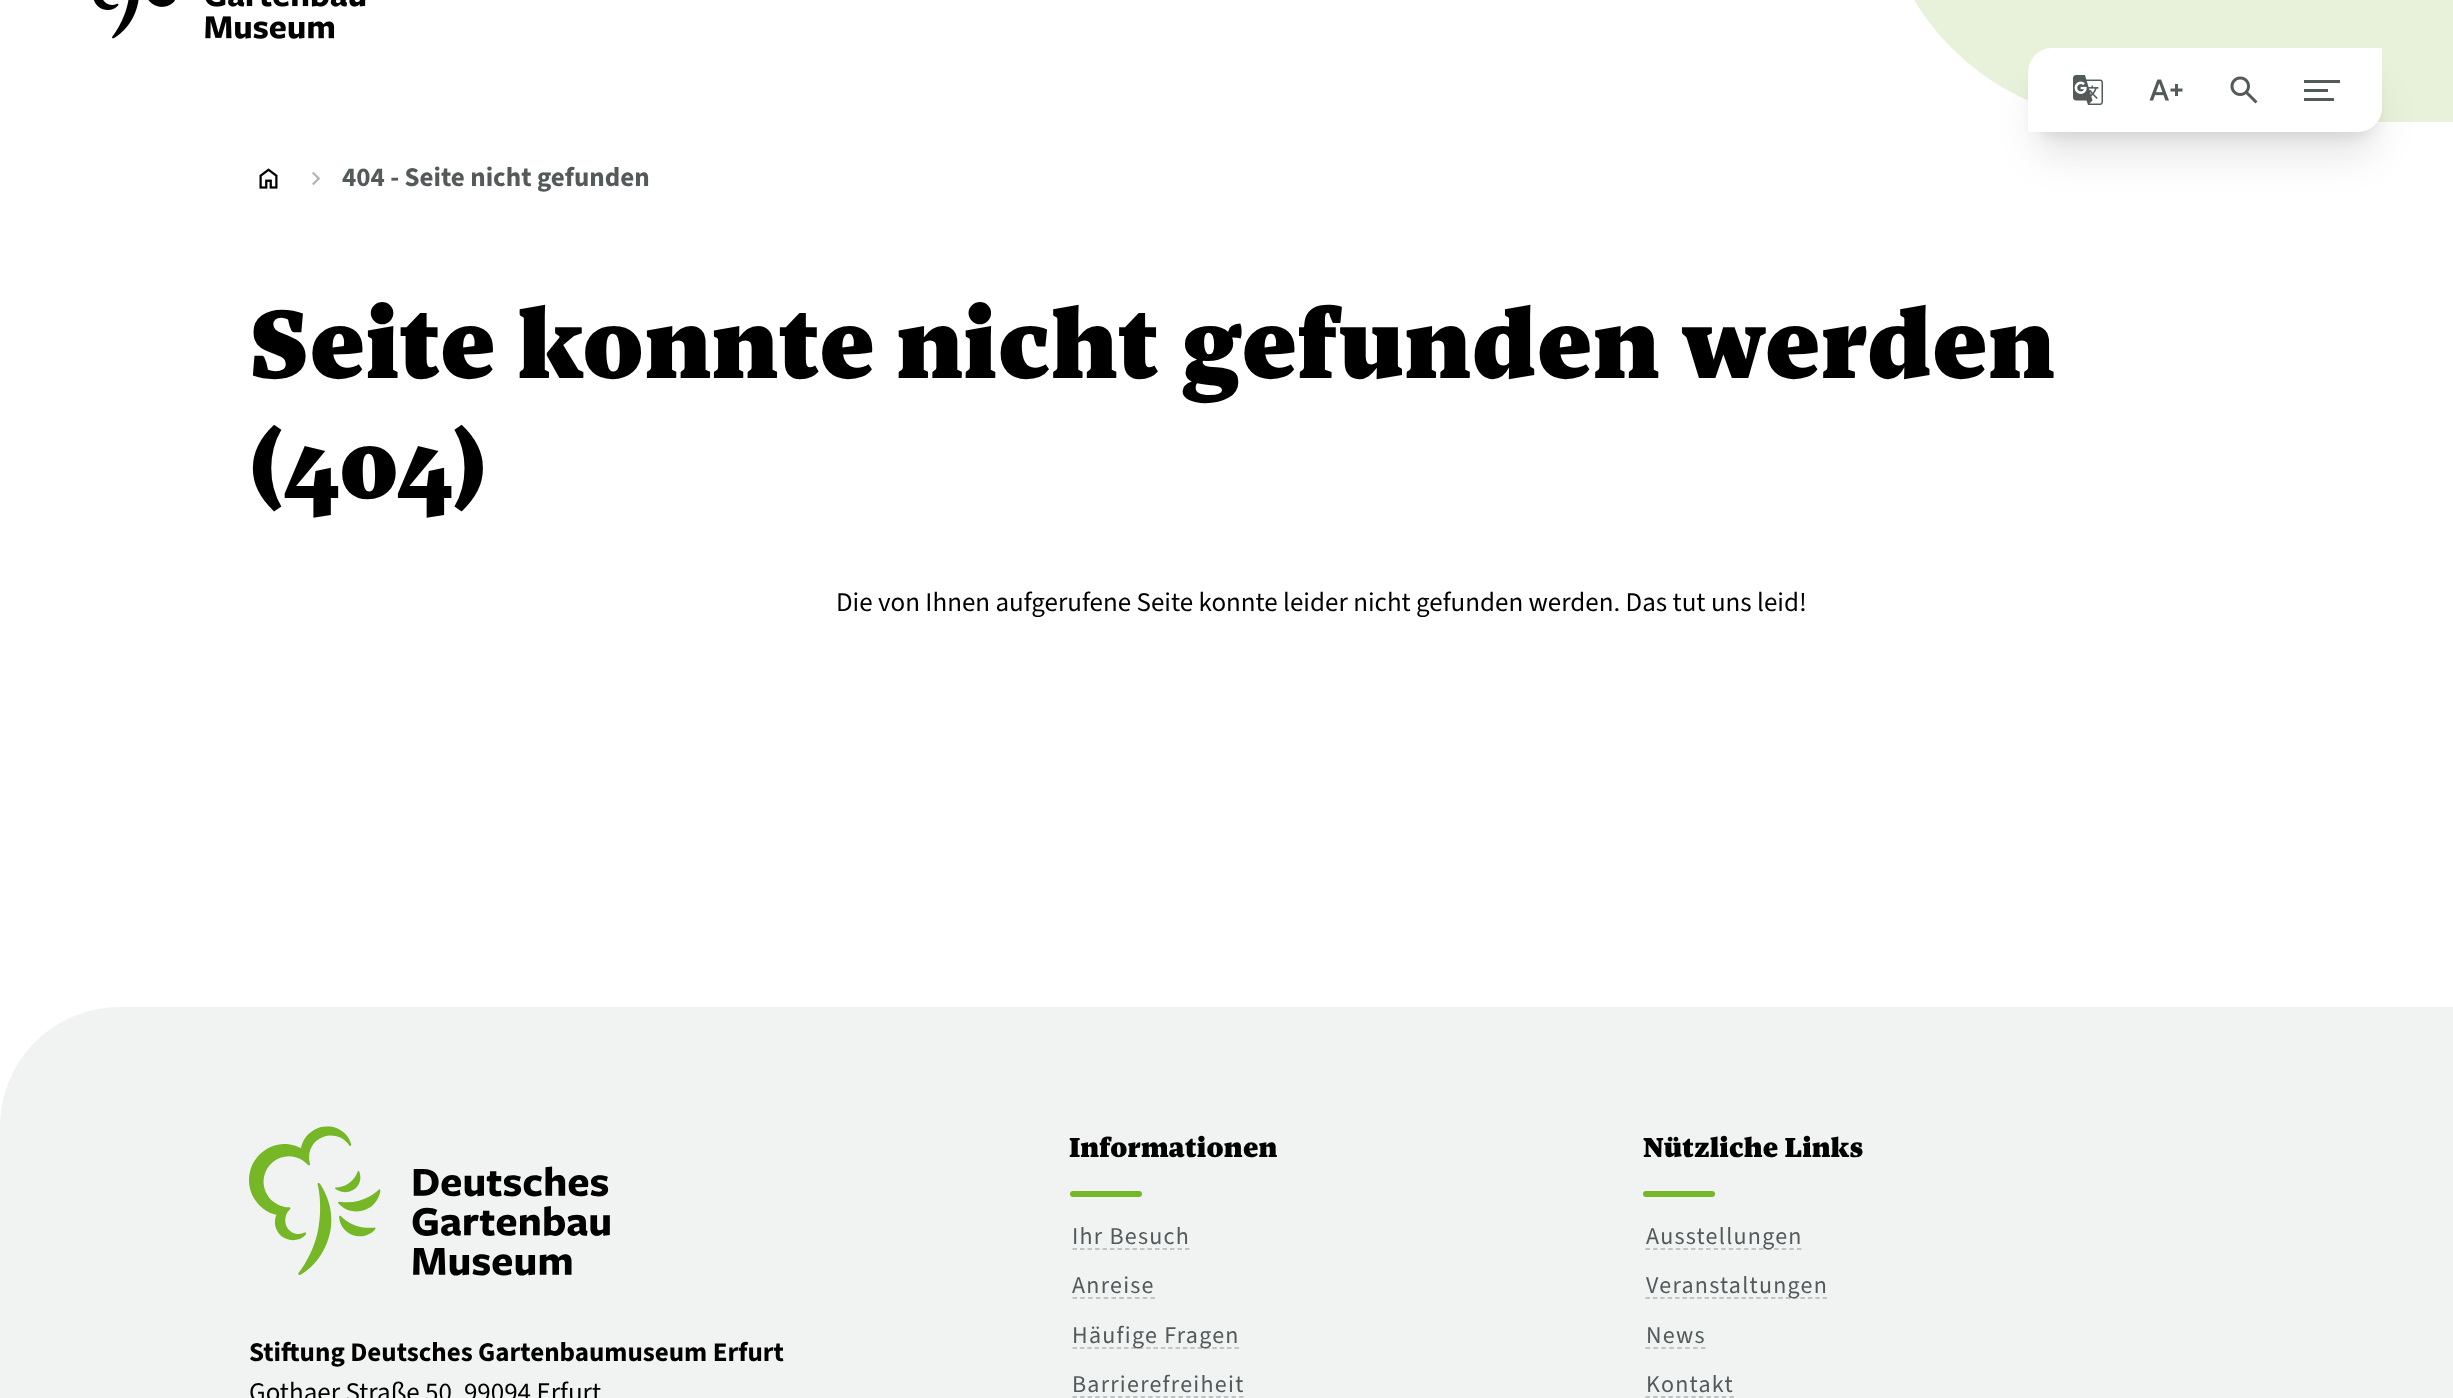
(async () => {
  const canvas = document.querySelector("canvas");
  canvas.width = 2453;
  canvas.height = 1398;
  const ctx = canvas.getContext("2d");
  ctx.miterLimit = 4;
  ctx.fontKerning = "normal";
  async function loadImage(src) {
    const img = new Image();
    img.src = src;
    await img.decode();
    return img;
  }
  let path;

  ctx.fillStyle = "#ffffff";
  ctx.fillRect(0, 0, 2453, 1398);
  ctx.fillStyle = "#e8f1d9";
  path = new Path2D("M1878-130H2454V122H2130C1991 122 1878 9 1878-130Z");
  ctx.fill(path);
  ctx.fillStyle = "rgba(0, 0, 0, 0.1)";
  ctx.filter = "blur(7.5px)";
  ctx.beginPath();
  ctx.roundRect(2037, 69, 336, 66, 15);
  ctx.fill();
  ctx.filter = "none";
  ctx.filter = "blur(19px)";
  ctx.beginPath();
  ctx.roundRect(2036, 86, 339, 69, 17);
  ctx.fill();
  ctx.filter = "none";
  ctx.fillStyle = "#ffffff";
  ctx.beginPath();
  ctx.roundRect(2028, 48, 354, 84, [24, 0, 24, 0]);
  ctx.fill();
  ctx.drawImage(await loadImage("img/1.png"), 2073, 75, 30, 30);
  ctx.drawImage(await loadImage("img/2.png"), 2149, 79, 34, 22);
  ctx.drawImage(await loadImage("img/3.png"), 2230, 76, 28, 28);
  for (const [x, y, w, h, color] of [
    [2304, 80, 36, 3, "#535a5a"],
    [2304, 89, 24, 3, "#535a5a"],
    [2304, 98, 30, 3, "#535a5a"],
  ]) {
    ctx.fillStyle = color;
    ctx.fillRect(x, y, w, h);
  }
  ctx.drawImage(await loadImage("img/4.png"), 93, 0, 273, 39);
  ctx.drawImage(await loadImage("img/5.png"), 259, 168, 19, 21);
  ctx.drawImage(await loadImage("img/6.png"), 312, 171, 9, 15);
  ctx.fillStyle = "#f1f3f3";
  path = new Path2D("M120 1007H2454V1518H0V1127C0 1060.5 53.5 1007 120 1007Z");
  ctx.fill(path);
  ctx.drawImage(await loadImage("img/7.png"), 249, 1126, 361, 150);
  ctx.fillStyle = "#75b726";
  ctx.beginPath();
  ctx.roundRect(1070, 1191, 72, 6, 3);
  ctx.fill();
  path = new Path2D("M1072.5 1249H1189.5");
  ctx.strokeStyle = "#afb6b6";
  ctx.lineWidth = 1.5;
  ctx.setLineDash([4.5, 3]);
  ctx.stroke(path);
  path = new Path2D("M1072.5 1298H1155");
  ctx.setLineDash([4.5, 3.3]);
  ctx.stroke(path);
  path = new Path2D("M1072.5 1348H1239");
  ctx.setLineDash([4.5, 2.86]);
  ctx.stroke(path);
  path = new Path2D("M1072.5 1397H1243.5");
  ctx.setLineDash([4.5, 3.07]);
  ctx.stroke(path);
  ctx.beginPath();
  ctx.roundRect(1643, 1191, 72, 6, 3);
  ctx.fill();
  path = new Path2D("M1645.5 1249H1801.5");
  ctx.stroke(path);
  path = new Path2D("M1645.5 1298H1827");
  ctx.setLineDash([4.5, 2.88]);
  ctx.stroke(path);
  path = new Path2D("M1645.5 1348H1705.5");
  ctx.setLineDash([4.5, 3.44]);
  ctx.stroke(path);
  path = new Path2D("M1645.5 1397H1734");
  ctx.setLineDash([4.5, 3.13]);
  ctx.stroke(path);
  ctx.font = "200 27px 'Source Sans 3'";
  ctx.fillStyle = "#535a5a";
  ctx.fillText("404 - Seite nicht gefunden", 342, 186);
  ctx.font = "800 96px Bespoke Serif";
  ctx.fillStyle = "#000000";
  ctx.fillText("Seite konnte nicht gefunden werden", 249, 378);
  ctx.fillText("(404)", 249, 498);
  ctx.font = "200 27px 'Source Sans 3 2'";
  ctx.fillText("Die von Ihnen aufgerufene Seite konnte leider nicht gefunden werden. Das tut uns leid!", 836, 611);
  ctx.font = "200 27px 'Source Sans 3'";
  ctx.fillText("Stiftung Deutsches Gartenbaumuseum Erfurt", 249, 1361);
  ctx.font = "200 27px 'Source Sans 3 2'";
  ctx.fillText("Gothaer Straße 50, 99094 Erfurt", 249, 1401);
  ctx.font = "800 27px Bespoke Serif";
  ctx.fillText("Informationen", 1069, 1157);
  ctx.letterSpacing = "1.25px";
  ctx.font = "200 24px 'Source Sans 3 2'";
  ctx.fillStyle = "#535a5a";
  for (const [text, x, y] of [
    ["Ihr Besuch", 1072, 1244],
    ["Anreise", 1072, 1293],
    ["Häufige Fragen", 1072, 1343],
    ["Barrierefreiheit", 1072, 1392],
  ]) {
    ctx.fillText(text, x, y);
  }
  ctx.letterSpacing = "0px";
  ctx.font = "800 27px Bespoke Serif";
  ctx.fillStyle = "#000000";
  ctx.fillText("Nützliche Links", 1643, 1157);
  ctx.letterSpacing = "1.25px";
  ctx.font = "200 24px 'Source Sans 3 2'";
  ctx.fillStyle = "#535a5a";
  for (const [text, x, y] of [
    ["Ausstellungen", 1646, 1244],
    ["Veranstaltungen", 1646, 1293],
    ["News", 1646, 1343],
    ["Kontakt", 1646, 1392],
  ]) {
    ctx.fillText(text, x, y);
  }
})();
